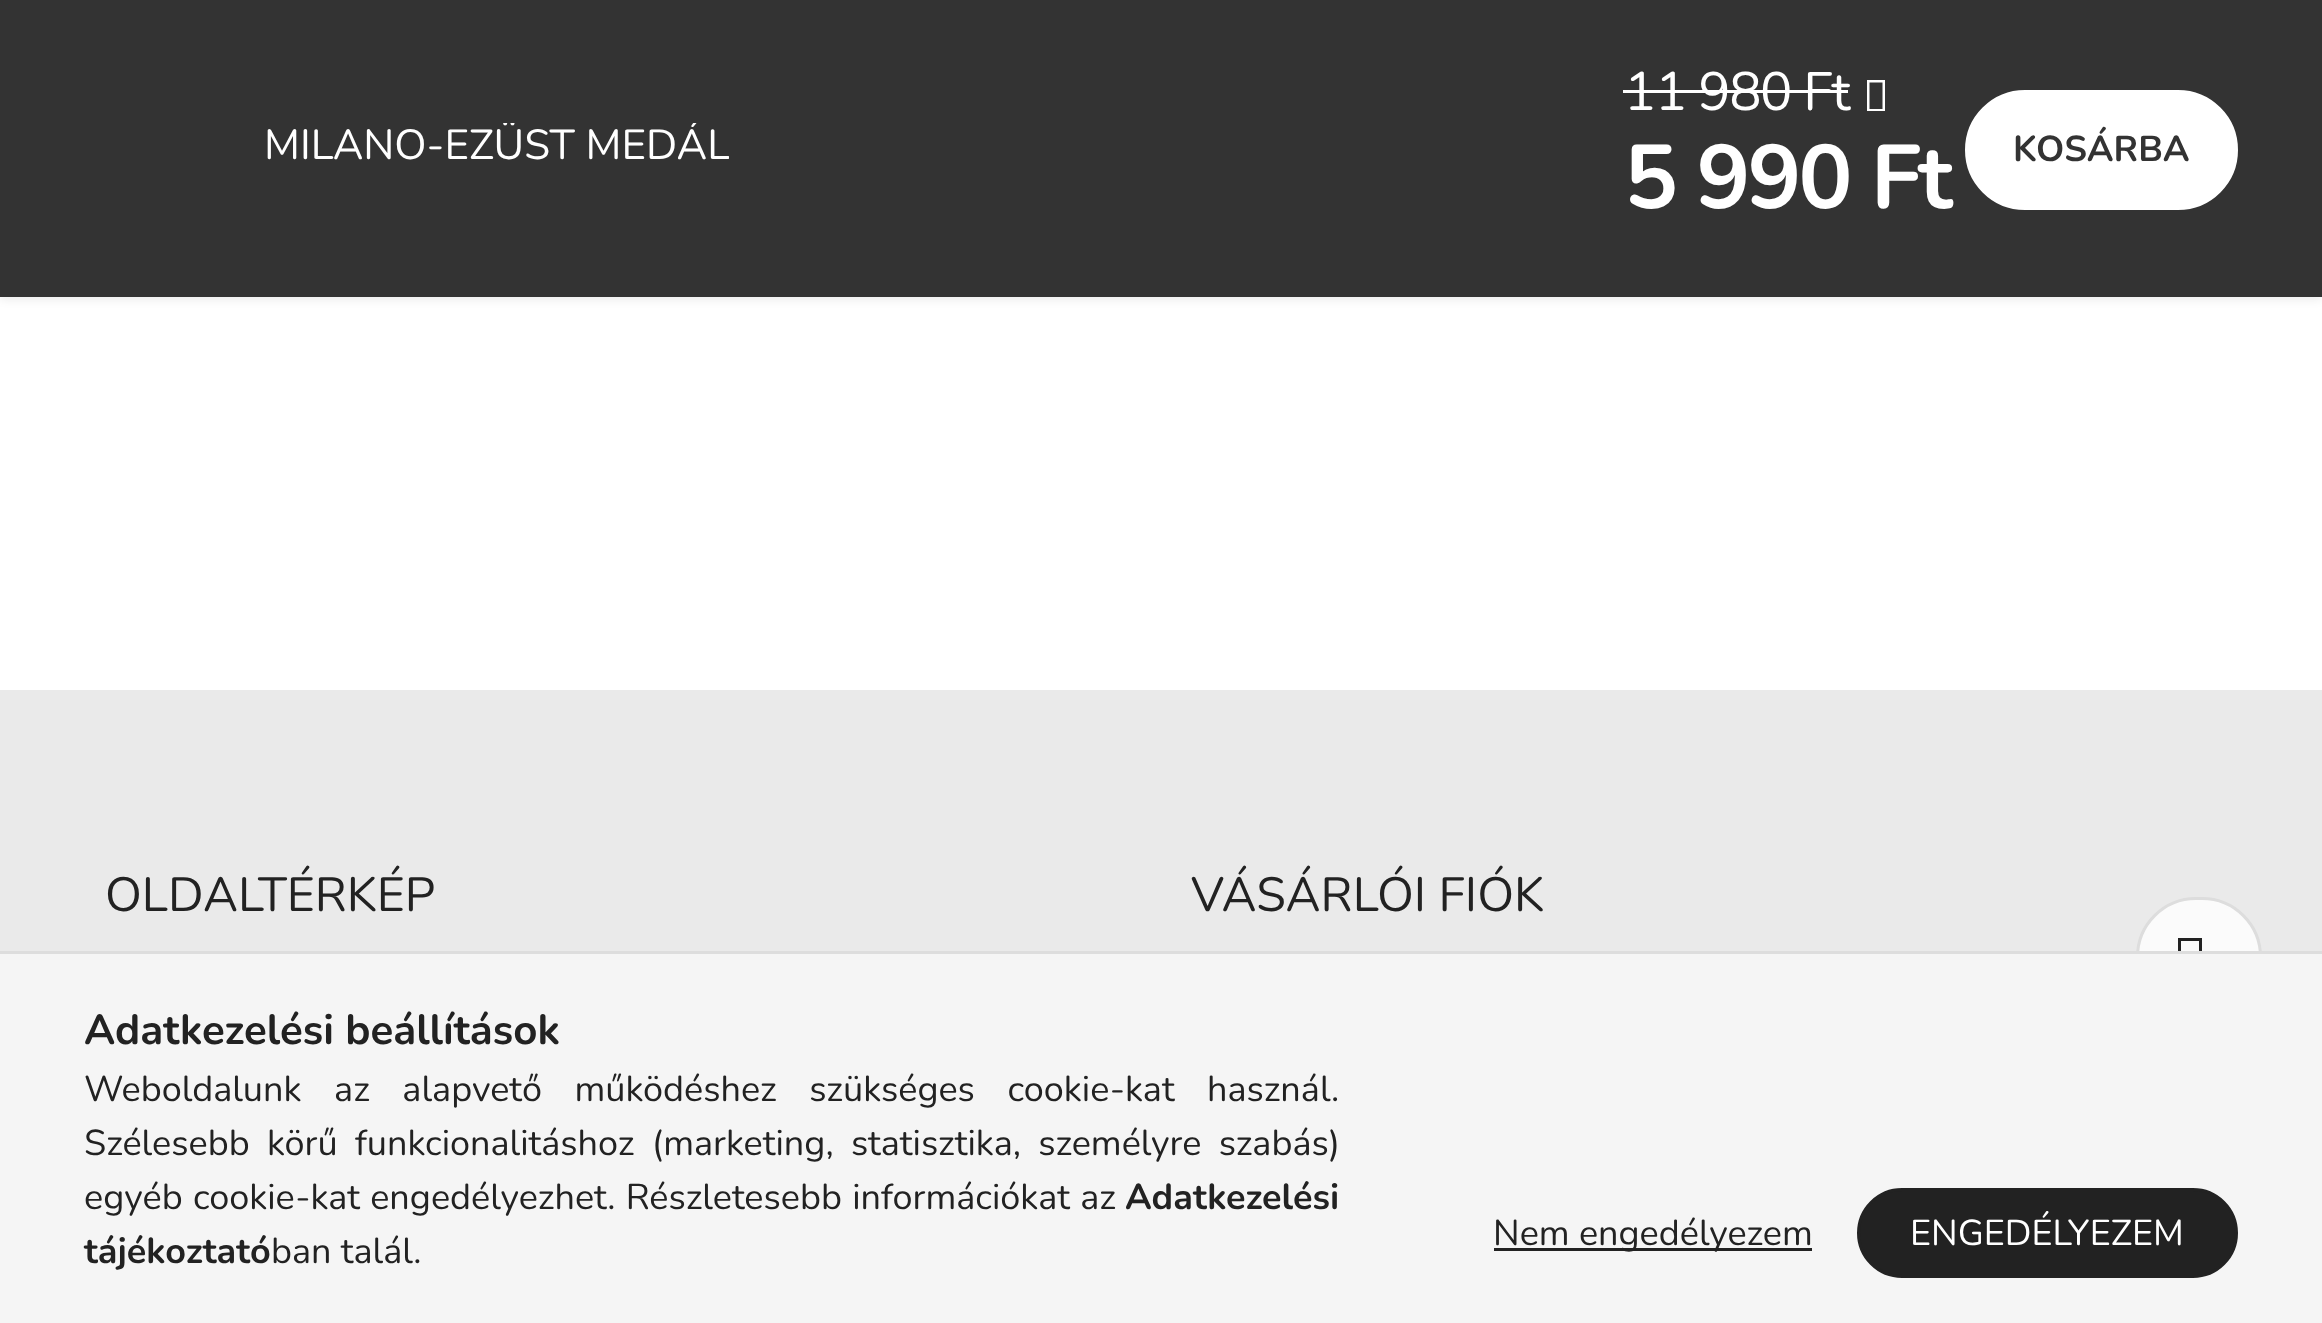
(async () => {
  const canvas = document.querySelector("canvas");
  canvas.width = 2322;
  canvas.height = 1323;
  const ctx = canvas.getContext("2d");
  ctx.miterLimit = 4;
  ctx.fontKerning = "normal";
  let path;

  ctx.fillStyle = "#ffffff";
  ctx.fillRect(0, 0, 2322, 1323);
  ctx.fillStyle = "rgba(0, 0, 0, 0.07)";
  ctx.filter = "blur(4px)";
  ctx.beginPath();
  ctx.rect(0, 3, 2322, 297);
  ctx.fill();
  ctx.filter = "none";
  ctx.fillStyle = "#333333";
  ctx.fillRect(0, 0, 2322, 297);
  ctx.fillStyle = "#ffffff";
  ctx.fillRect(1623, 90, 225, 3);
  path = new Path2D("M1867 111V80H1885V111ZM1869.5 109H1882.5V82.5H1869.5Z");
  ctx.fill(path);
  ctx.beginPath();
  ctx.roundRect(1966.5, 91.5, 270, 117, 58.5);
  ctx.fill();
  ctx.strokeStyle = "#ffffff";
  ctx.lineWidth = 3;
  ctx.stroke();
  ctx.fillStyle = "#eaeaea";
  ctx.fillRect(0, 690, 2322, 261);
  ctx.fillStyle = "#fbfbfb";
  ctx.beginPath();
  ctx.roundRect(2137.5, 898.5, 123, 123, 58.5);
  ctx.fill();
  ctx.strokeStyle = "#dddddd";
  ctx.stroke();
  ctx.fillStyle = "#222222";
  path = new Path2D("M2178 981V938H2202V981ZM2181 978H2199V941H2181Z");
  ctx.fill(path);
  for (const [x, y, w, h, color] of [
    [0, 954, 2322, 369, "#f5f5f5"],
    [0, 951, 2322, 3, "#dddddd"],
    [1494, 1248, 318, 3, "#222222"],
  ]) {
    ctx.fillStyle = color;
    ctx.fillRect(x, y, w, h);
  }
  ctx.beginPath();
  ctx.roundRect(1858.5, 1189.5, 378, 87, 43.5);
  ctx.fill();
  ctx.strokeStyle = "#222222";
  ctx.stroke();
  ctx.save();
  ctx.beginPath();
  ctx.rect(264, 123, 465, 51);
  ctx.clip();
  ctx.font = "42px Nunito";
  ctx.fillStyle = "#ffffff";
  ctx.fillText("MILANO-EZÜST MEDÁL", 264, 159);
  ctx.restore();
  ctx.letterSpacing = "-1.5px";
  ctx.font = "54px Nunito";
  ctx.fillStyle = "#ffffff";
  ctx.fillText("11 980 Ft", 1624, 110);
  ctx.letterSpacing = "-3px";
  ctx.font = "bold 90px Nunito";
  ctx.fillText("5 990 Ft", 1624, 208);
  ctx.letterSpacing = "0px";
  ctx.font = "bold 36px Nunito";
  ctx.fillStyle = "#333333";
  ctx.fillText("KOSÁRBA", 2013, 161);
  ctx.font = "48px Nunito";
  ctx.fillStyle = "#222222";
  ctx.fillText("OLDALTÉRKÉP", 105, 911);
  ctx.fillText("VÁSÁRLÓI FIÓK", 1191, 911);
  ctx.font = "bold 42px Nunito";
  ctx.fillText("Adatkezelési beállítások", 84, 1044);
  ctx.wordSpacing = "23.25px";
  ctx.font = "36px Nunito";
  ctx.fillText("Weboldalunk az alapvető működéshez szükséges cookie-kat használ.", 84, 1101);
  ctx.wordSpacing = "8px";
  ctx.fillText("Szélesebb körű funkcionalitáshoz (marketing, statisztika, személyre szabás)", 84, 1155);
  ctx.wordSpacing = "1px";
  ctx.fillText("egyéb cookie-kat engedélyezhet. Részletesebb információkat az", 84, 1209);
  ctx.wordSpacing = "0px";
  ctx.font = "bold 36px Nunito";
  ctx.fillText("Adatkezelési", 1125, 1209);
  ctx.fillText("tájékoztató", 84, 1263);
  ctx.font = "36px Nunito";
  ctx.fillText("ban talál.", 271, 1263);
  ctx.fillText("Nem engedélyezem", 1493, 1245);
  ctx.fillStyle = "#ffffff";
  ctx.fillText("ENGEDÉLYEZEM", 1910, 1245);
})();
